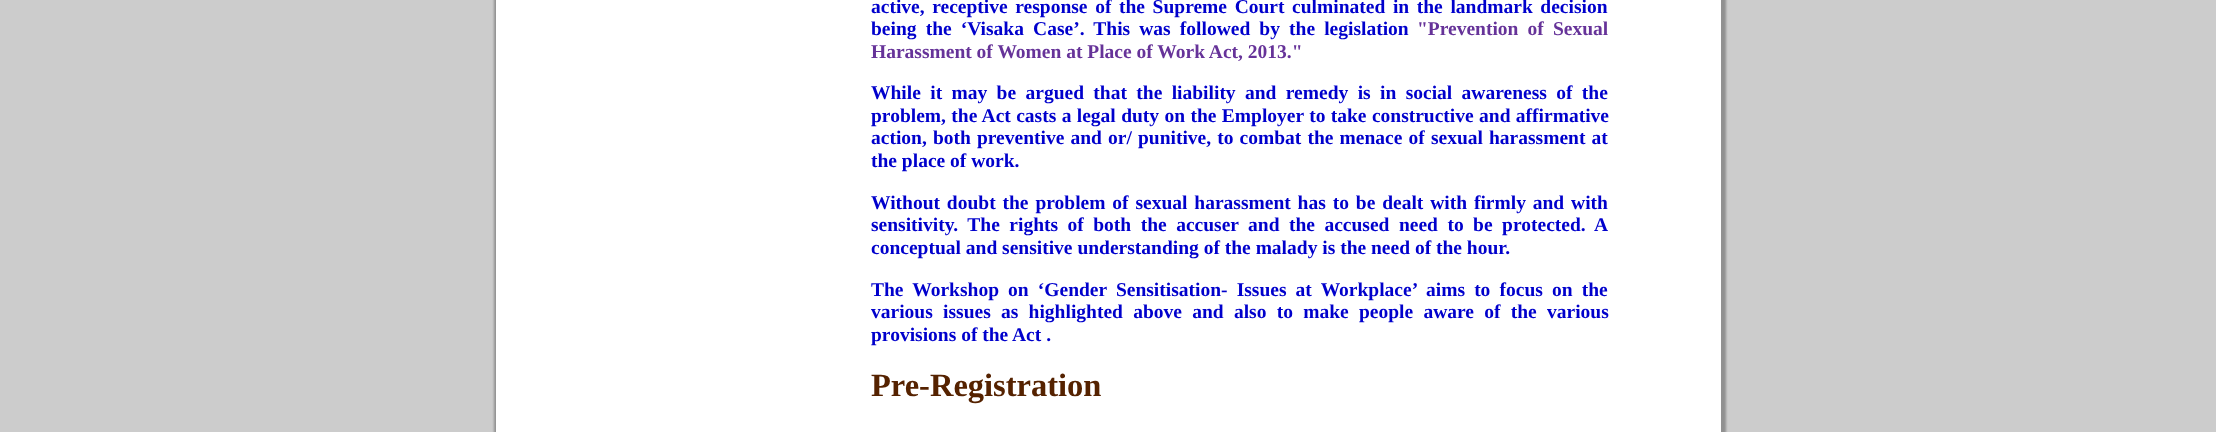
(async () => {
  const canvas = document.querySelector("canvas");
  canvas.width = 2216;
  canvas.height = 432;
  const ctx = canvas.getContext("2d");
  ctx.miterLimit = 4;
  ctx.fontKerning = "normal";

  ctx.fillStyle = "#cccccc";
  ctx.fillRect(0, 0, 2216, 432);
  ctx.fillStyle = "rgba(33, 33, 33, 0.35)";
  ctx.filter = "blur(1px)";
  ctx.beginPath();
  ctx.roundRect(494, -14, 1232, 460, 11);
  ctx.fill();
  ctx.filter = "none";
  ctx.fillStyle = "#ffffff";
  ctx.fillRect(496, 0, 1225, 432);
  ctx.wordSpacing = "2.75px";
  ctx.font = "bold 19.5px Liberation Serif";
  ctx.fillStyle = "#0000cc";
  ctx.fillText("active, receptive response of the Supreme Court culminated in the landmark decision", 871, 13);
  ctx.wordSpacing = "4.25px";
  ctx.fillText("being the ‘Visaka Case’. This was followed by the legislation", 871, 35);
  ctx.fillStyle = "#663399";
  ctx.fillText("\"Prevention of Sexual", 1417, 35);
  ctx.wordSpacing = "0px";
  ctx.fillText("Harassment of Women at Place of Work Act, 2013.\"", 871, 58);
  ctx.wordSpacing = "4.5px";
  ctx.fillStyle = "#0000cc";
  ctx.fillText("While it may be argued that the liability and remedy is in social awareness of the", 871, 99);
  ctx.wordSpacing = "0.5px";
  ctx.fillText("problem, the Act casts a legal duty on the Employer to take constructive and affirmative", 871, 122);
  ctx.wordSpacing = "1.25px";
  ctx.fillText("action, both preventive and or/ punitive, to combat the menace of sexual harassment at", 871, 144);
  ctx.wordSpacing = "0px";
  ctx.fillText("the place of work.", 871, 167);
  ctx.wordSpacing = "2px";
  ctx.fillText("Without doubt the problem of sexual harassment has to be dealt with firmly and with", 871, 209);
  ctx.wordSpacing = "4.6px";
  ctx.fillText("sensitivity. The rights of both the accuser and the accused need to be protected. A", 871, 231);
  ctx.wordSpacing = "0px";
  ctx.fillText("conceptual and sensitive understanding of the malady is the need of the hour.", 871, 254);
  ctx.wordSpacing = "4.25px";
  ctx.fillText("The Workshop on ‘Gender Sensitisation- Issues at Workplace’", 871, 296);
  ctx.fillText("aims to focus on the", 1426, 296);
  ctx.wordSpacing = "5.4px";
  ctx.fillText("various issues as highlighted above and also to make people aware of the various", 871, 318);
  ctx.wordSpacing = "0px";
  ctx.fillText("provisions of the Act .", 871, 341);
  ctx.font = "bold 32.5px Liberation Serif";
  ctx.fillStyle = "#552200";
  ctx.fillText("Pre-Registration", 871, 396);
})();
